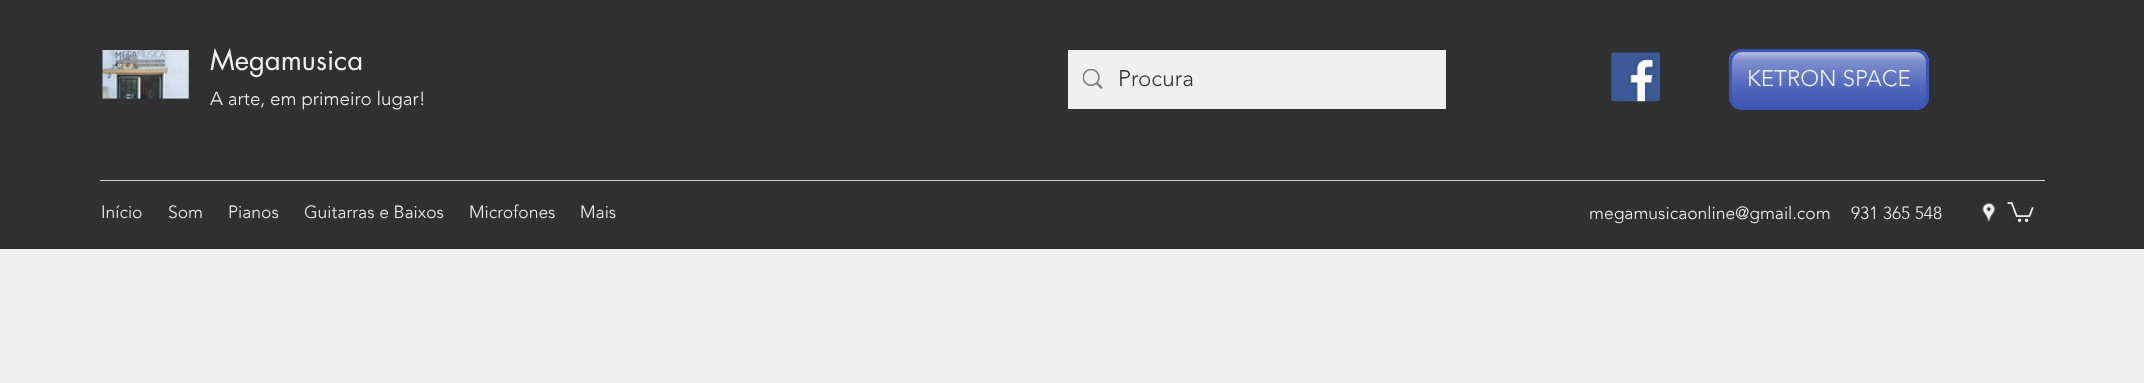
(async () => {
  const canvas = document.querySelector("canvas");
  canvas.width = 2144;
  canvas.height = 383;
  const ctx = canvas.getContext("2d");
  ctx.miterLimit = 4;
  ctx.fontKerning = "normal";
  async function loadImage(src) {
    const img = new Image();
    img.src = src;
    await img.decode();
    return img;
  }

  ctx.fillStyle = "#f0f0f0";
  ctx.fillRect(0, 0, 2144, 383);
  ctx.fillStyle = "#303030";
  ctx.fillRect(0, 0, 2144, 249);
  ctx.drawImage(await loadImage("img/1.png"), 102, 50, 87, 49);
  ctx.fillStyle = "#f0f0f0";
  ctx.fillRect(1068, 50, 378, 59);
  ctx.drawImage(await loadImage("img/2.png"), 1083, 69, 20, 20);
  ctx.drawImage(await loadImage("img/3.png"), 1611, 52, 49, 50);
  ctx.fillStyle = "#3a54b4";
  ctx.beginPath();
  ctx.roundRect(1729, 49, 200, 61, 13);
  ctx.fill();
  ctx.drawImage(await loadImage("img/4.png"), 1728, 51, 201, 57);
  ctx.beginPath();
  ctx.roundRect(1730.5, 50.5, 197, 58, 11.5);
  ctx.strokeStyle = "#3a54b4";
  ctx.lineWidth = 3;
  ctx.stroke();
  ctx.fillStyle = "#d3d3d3";
  ctx.fillRect(100, 180, 1945, 1);
  ctx.drawImage(await loadImage("img/5.png"), 1982, 202, 14, 20);
  ctx.drawImage(await loadImage("img/6.png"), 2007, 202, 27, 20);
  ctx.font = "27.5px futura";
  ctx.fillStyle = "#f0f0f0";
  ctx.fillText("Megamusica", 210, 70);
  ctx.font = "300 18.75px 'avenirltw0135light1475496'";
  ctx.fillText("A arte, em primeiro lugar!", 210, 105);
  ctx.font = "300 22.5px 'avenirltw0135light1475496'";
  ctx.fillStyle = "#303030";
  ctx.fillText("Procura", 1118, 86);
  ctx.fillStyle = "#f0f0f0";
  ctx.fillText("KETRON SPACE", 1747, 86);
  ctx.font = "300 17.5px 'avenirltw0135light1475496'";
  for (const [text, x, y] of [
    ["Início", 101, 218],
    ["Som", 168, 218],
    ["Pianos", 228, 218],
    ["Guitarras e Baixos", 304, 218],
    ["Microfones", 469, 218],
    ["Mais", 580, 218],
    ["megamusicaonline@gmail.com", 1589, 219],
    ["931 365 548", 1851, 219],
  ]) {
    ctx.fillText(text, x, y);
  }
})();
